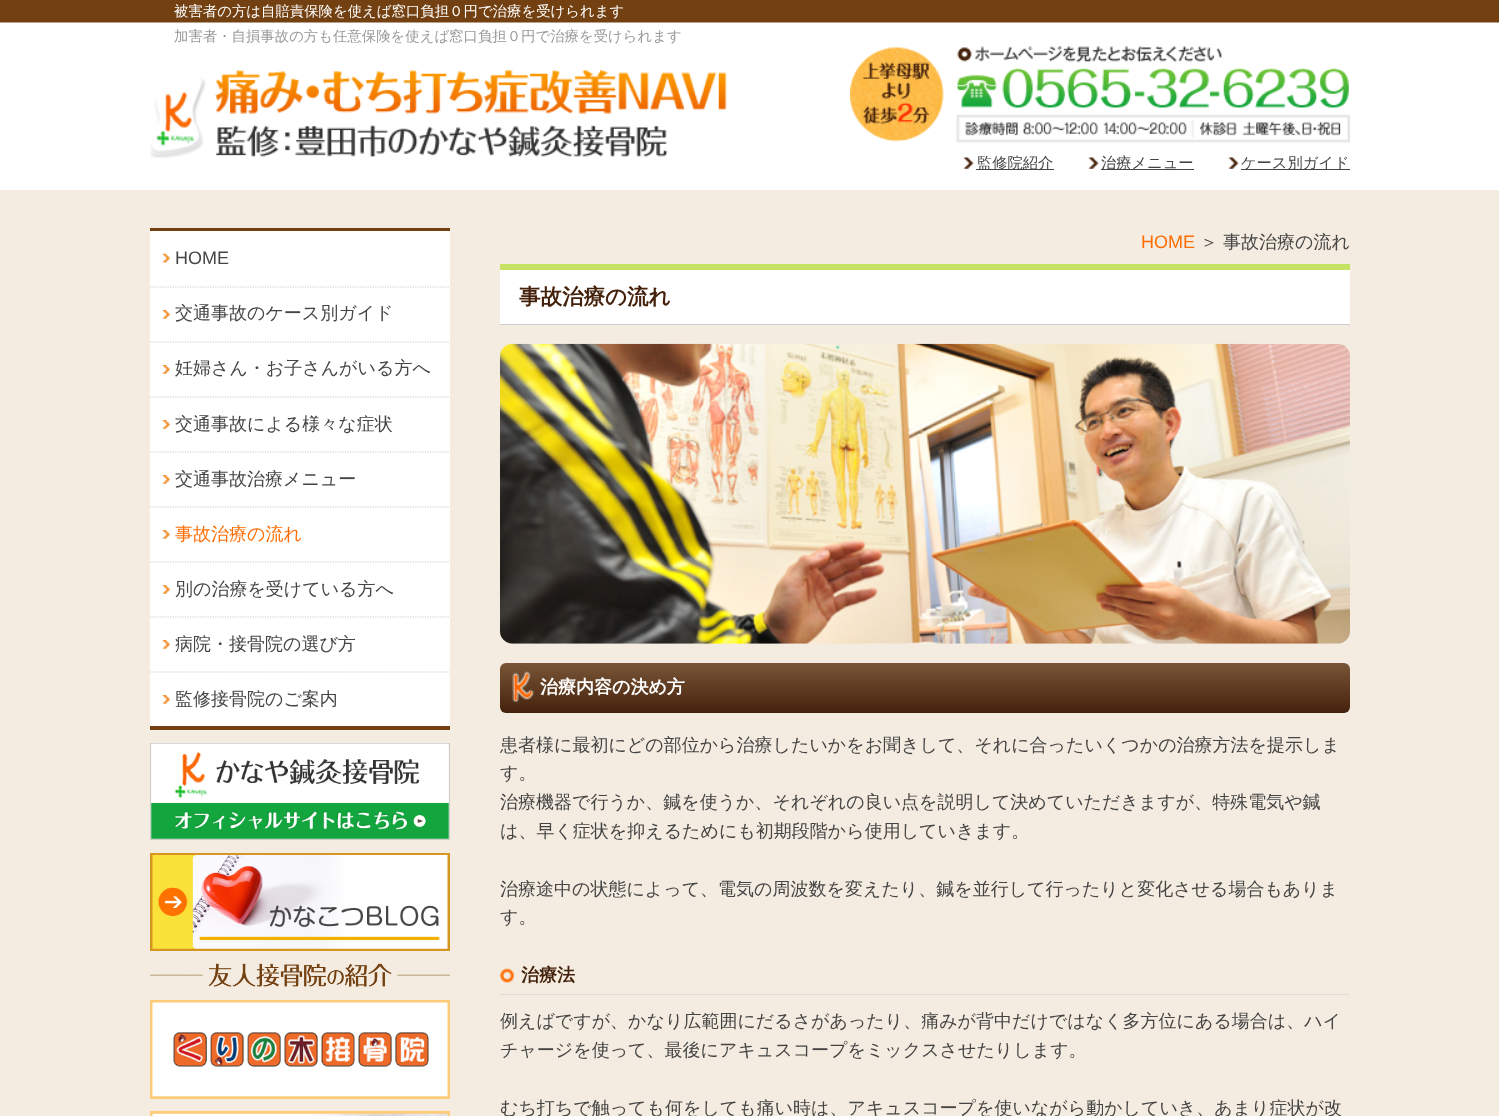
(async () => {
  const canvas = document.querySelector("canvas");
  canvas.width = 1499;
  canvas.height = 1116;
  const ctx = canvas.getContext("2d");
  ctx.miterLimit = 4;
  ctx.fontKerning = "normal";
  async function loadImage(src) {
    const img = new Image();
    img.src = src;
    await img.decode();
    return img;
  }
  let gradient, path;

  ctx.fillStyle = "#ffffff";
  ctx.fillRect(0, 0, 1499, 1116);
  ctx.drawImage(await loadImage("img/1.png"), 0, 0, 1499, 190);
  ctx.drawImage(await loadImage("img/2.png"), 150, 70, 577, 88);
  ctx.drawImage(await loadImage("img/3.png"), 850, 46, 500, 97);
  ctx.drawImage(await loadImage("img/4.png"), 963, 157, 11, 12);
  ctx.fillStyle = "#454545";
  ctx.fillRect(976, 169, 78, 1);
  ctx.drawImage(await loadImage("img/4.png"), 1088, 157, 11, 12);
  ctx.fillRect(1101, 169, 93, 1);
  ctx.drawImage(await loadImage("img/5.png"), 1228, 157, 11, 12);
  for (const [x, y, w, h, color] of [
    [1241, 169, 109, 1, "#454545"],
    [0, 190, 1499, 926, "#f4ece0"],
    [150, 228, 300, 3, "#734011"],
    [150, 726, 300, 4, "#734011"],
    [150, 231, 300, 495, "#ffffff"],
  ]) {
    ctx.fillStyle = color;
    ctx.fillRect(x, y, w, h);
  }
  path = new Path2D("M150 287H450");
  ctx.strokeStyle = "#cccccc";
  ctx.lineWidth = 1.2;
  ctx.setLineDash([1.25, 1.25]);
  ctx.stroke(path);
  ctx.drawImage(await loadImage("img/6.png"), 162, 253, 8, 10);
  path = new Path2D("M150 342H450");
  ctx.stroke(path);
  ctx.drawImage(await loadImage("img/7.png"), 162, 310, 8, 9);
  path = new Path2D("M150 397H450");
  ctx.stroke(path);
  ctx.drawImage(await loadImage("img/7.png"), 162, 365, 8, 9);
  path = new Path2D("M150 452H450");
  ctx.stroke(path);
  ctx.drawImage(await loadImage("img/7.png"), 162, 420, 8, 9);
  path = new Path2D("M150 507H450");
  ctx.stroke(path);
  ctx.drawImage(await loadImage("img/7.png"), 162, 475, 8, 9);
  path = new Path2D("M150 562H450");
  ctx.stroke(path);
  ctx.drawImage(await loadImage("img/7.png"), 162, 530, 8, 9);
  path = new Path2D("M150 617H450");
  ctx.stroke(path);
  ctx.drawImage(await loadImage("img/8.png"), 162, 585, 8, 9);
  path = new Path2D("M150 672H450");
  ctx.stroke(path);
  ctx.drawImage(await loadImage("img/7.png"), 162, 640, 8, 9);
  ctx.drawImage(await loadImage("img/7.png"), 162, 695, 8, 9);
  ctx.lineWidth = 1;
  ctx.setLineDash([]);
  ctx.strokeRect(150.5, 743.5, 299, 96);
  ctx.drawImage(await loadImage("img/9.png"), 151, 743, 298, 96);
  ctx.strokeStyle = "#d59622";
  ctx.lineWidth = 3;
  ctx.strokeRect(151.5, 854.5, 297, 95);
  ctx.drawImage(await loadImage("img/10.png"), 152, 855, 296, 94);
  ctx.drawImage(await loadImage("img/11.png"), 150, 963, 300, 24);
  ctx.strokeStyle = "#fecb78";
  ctx.strokeRect(151.5, 1001.5, 297, 96);
  ctx.drawImage(await loadImage("img/12.png"), 152, 1002, 296, 95);
  ctx.strokeRect(151.5, 1112.5, 297, 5);
  ctx.drawImage(await loadImage("img/13.png"), 152, 1113, 296, 3);
  for (const [x, y, w, h, color] of [
    [500, 270, 850, 54, "#ffffff"],
    [500, 264, 850, 6, "#c5e262"],
    [500, 324, 850, 1, "#cccccc"],
  ]) {
    ctx.fillStyle = color;
    ctx.fillRect(x, y, w, h);
  }
  ctx.drawImage(await loadImage("img/14.png"), 500, 343, 850, 301);
  gradient = ctx.createLinearGradient(925, 663, 925, 713);
  gradient.addColorStop(0, "#795637");
  gradient.addColorStop(1, "#44210b");
  ctx.fillStyle = gradient;
  ctx.beginPath();
  ctx.roundRect(500, 663, 850, 50, 6);
  ctx.fill();
  ctx.drawImage(await loadImage("img/15.png"), 512, 671, 22, 32);
  ctx.drawImage(await loadImage("img/16.png"), 500, 968, 14, 15);
  path = new Path2D("M500 994.5H1350");
  ctx.strokeStyle = "#cccccc";
  ctx.lineWidth = 1.2;
  ctx.setLineDash([1.25, 1.25]);
  ctx.stroke(path);
  ctx.font = "500 14.4px WenQuanYi Zen Hei";
  ctx.fillStyle = "#ffffff";
  ctx.fillText("被害者の方は自賠責保険を使えば窓口負担０円で治療を受けられます", 174, 16);
  ctx.fillStyle = "#999999";
  ctx.fillText("加害者・自損事故の方も任意保険を使えば窓口負担０円で治療を受けられます", 174, 41);
  ctx.font = "500 15.25px WenQuanYi Zen Hei";
  ctx.fillStyle = "#454545";
  for (const [text, x, y] of [
    ["監修院紹介", 977, 168],
    ["治療メニュー", 1101, 168],
    ["ケース別ガイド", 1241, 168],
  ]) {
    ctx.fillText(text, x, y);
  }
  ctx.font = "18px Liberation Sans";
  ctx.fillText("HOME", 175, 264);
  ctx.font = "500 18px WenQuanYi Zen Hei";
  for (const [text, x, y] of [
    ["交通事故のケース別ガイド", 175, 319],
    ["妊婦さん・お子さんがいる方へ", 175, 374],
    ["交通事故による様々な症状", 175, 430],
    ["交通事故治療メニュー", 175, 485],
  ]) {
    ctx.fillText(text, x, y);
  }
  ctx.fillStyle = "#fe6d03";
  ctx.fillText("事故治療の流れ", 175, 540);
  ctx.fillStyle = "#454545";
  for (const [text, x, y] of [
    ["別の治療を受けている方へ", 175, 595],
    ["病院・接骨院の選び方", 175, 650],
    ["監修接骨院のご案内", 175, 705],
  ]) {
    ctx.fillText(text, x, y);
  }
  ctx.font = "18px Liberation Sans";
  ctx.fillStyle = "#fe6d03";
  ctx.fillText("HOME", 1141, 248);
  ctx.font = "500 18px WenQuanYi Zen Hei";
  ctx.fillStyle = "#454545";
  ctx.fillText("＞", 1200, 248);
  ctx.fillText("事故治療の流れ", 1223, 248);
  ctx.font = "bold 21.5px WenQuanYi Zen Hei";
  ctx.fillStyle = "#44210b";
  ctx.fillText("事故治療の流れ", 519, 304);
  ctx.font = "bold 18px WenQuanYi Zen Hei";
  ctx.fillStyle = "#ffffff";
  ctx.fillText("治療内容の決め方", 540, 693);
  ctx.font = "500 18px WenQuanYi Zen Hei";
  ctx.fillStyle = "#454545";
  for (const [text, x, y] of [
    ["患者様に最初にどの部位から治療したいかをお聞きして、それに合ったいくつかの治療方法を提示しま", 500, 751],
    ["す。", 500, 779],
    ["治療機器で行うか、鍼を使うか、それぞれの良い点を説明して決めていただきますが、特殊電気や鍼", 500, 808],
    ["は、早く症状を抑えるためにも初期段階から使用していきます。", 500, 837],
    ["治療途中の状態によって、電気の周波数を変えたり、鍼を並行して行ったりと変化させる場合もありま", 500, 895],
    ["す。", 500, 923],
  ]) {
    ctx.fillText(text, x, y);
  }
  ctx.font = "bold 18px WenQuanYi Zen Hei";
  ctx.fillStyle = "#44210b";
  ctx.fillText("治療法", 521, 981);
  ctx.font = "500 18px WenQuanYi Zen Hei";
  ctx.fillStyle = "#454545";
  for (const [text, x, y] of [
    ["例えばですが、かなり広範囲にだるさがあったり、痛みが背中だけではなく多方位にある場合は、ハイ", 500, 1027],
    ["チャージを使って、最後にアキュスコープをミックスさせたりします。", 500, 1056],
    ["むち打ちで触っても何をしても痛い時は、アキュスコープを使いながら動かしていき、あまり症状が改", 500, 1114],
  ]) {
    ctx.fillText(text, x, y);
  }
})();
